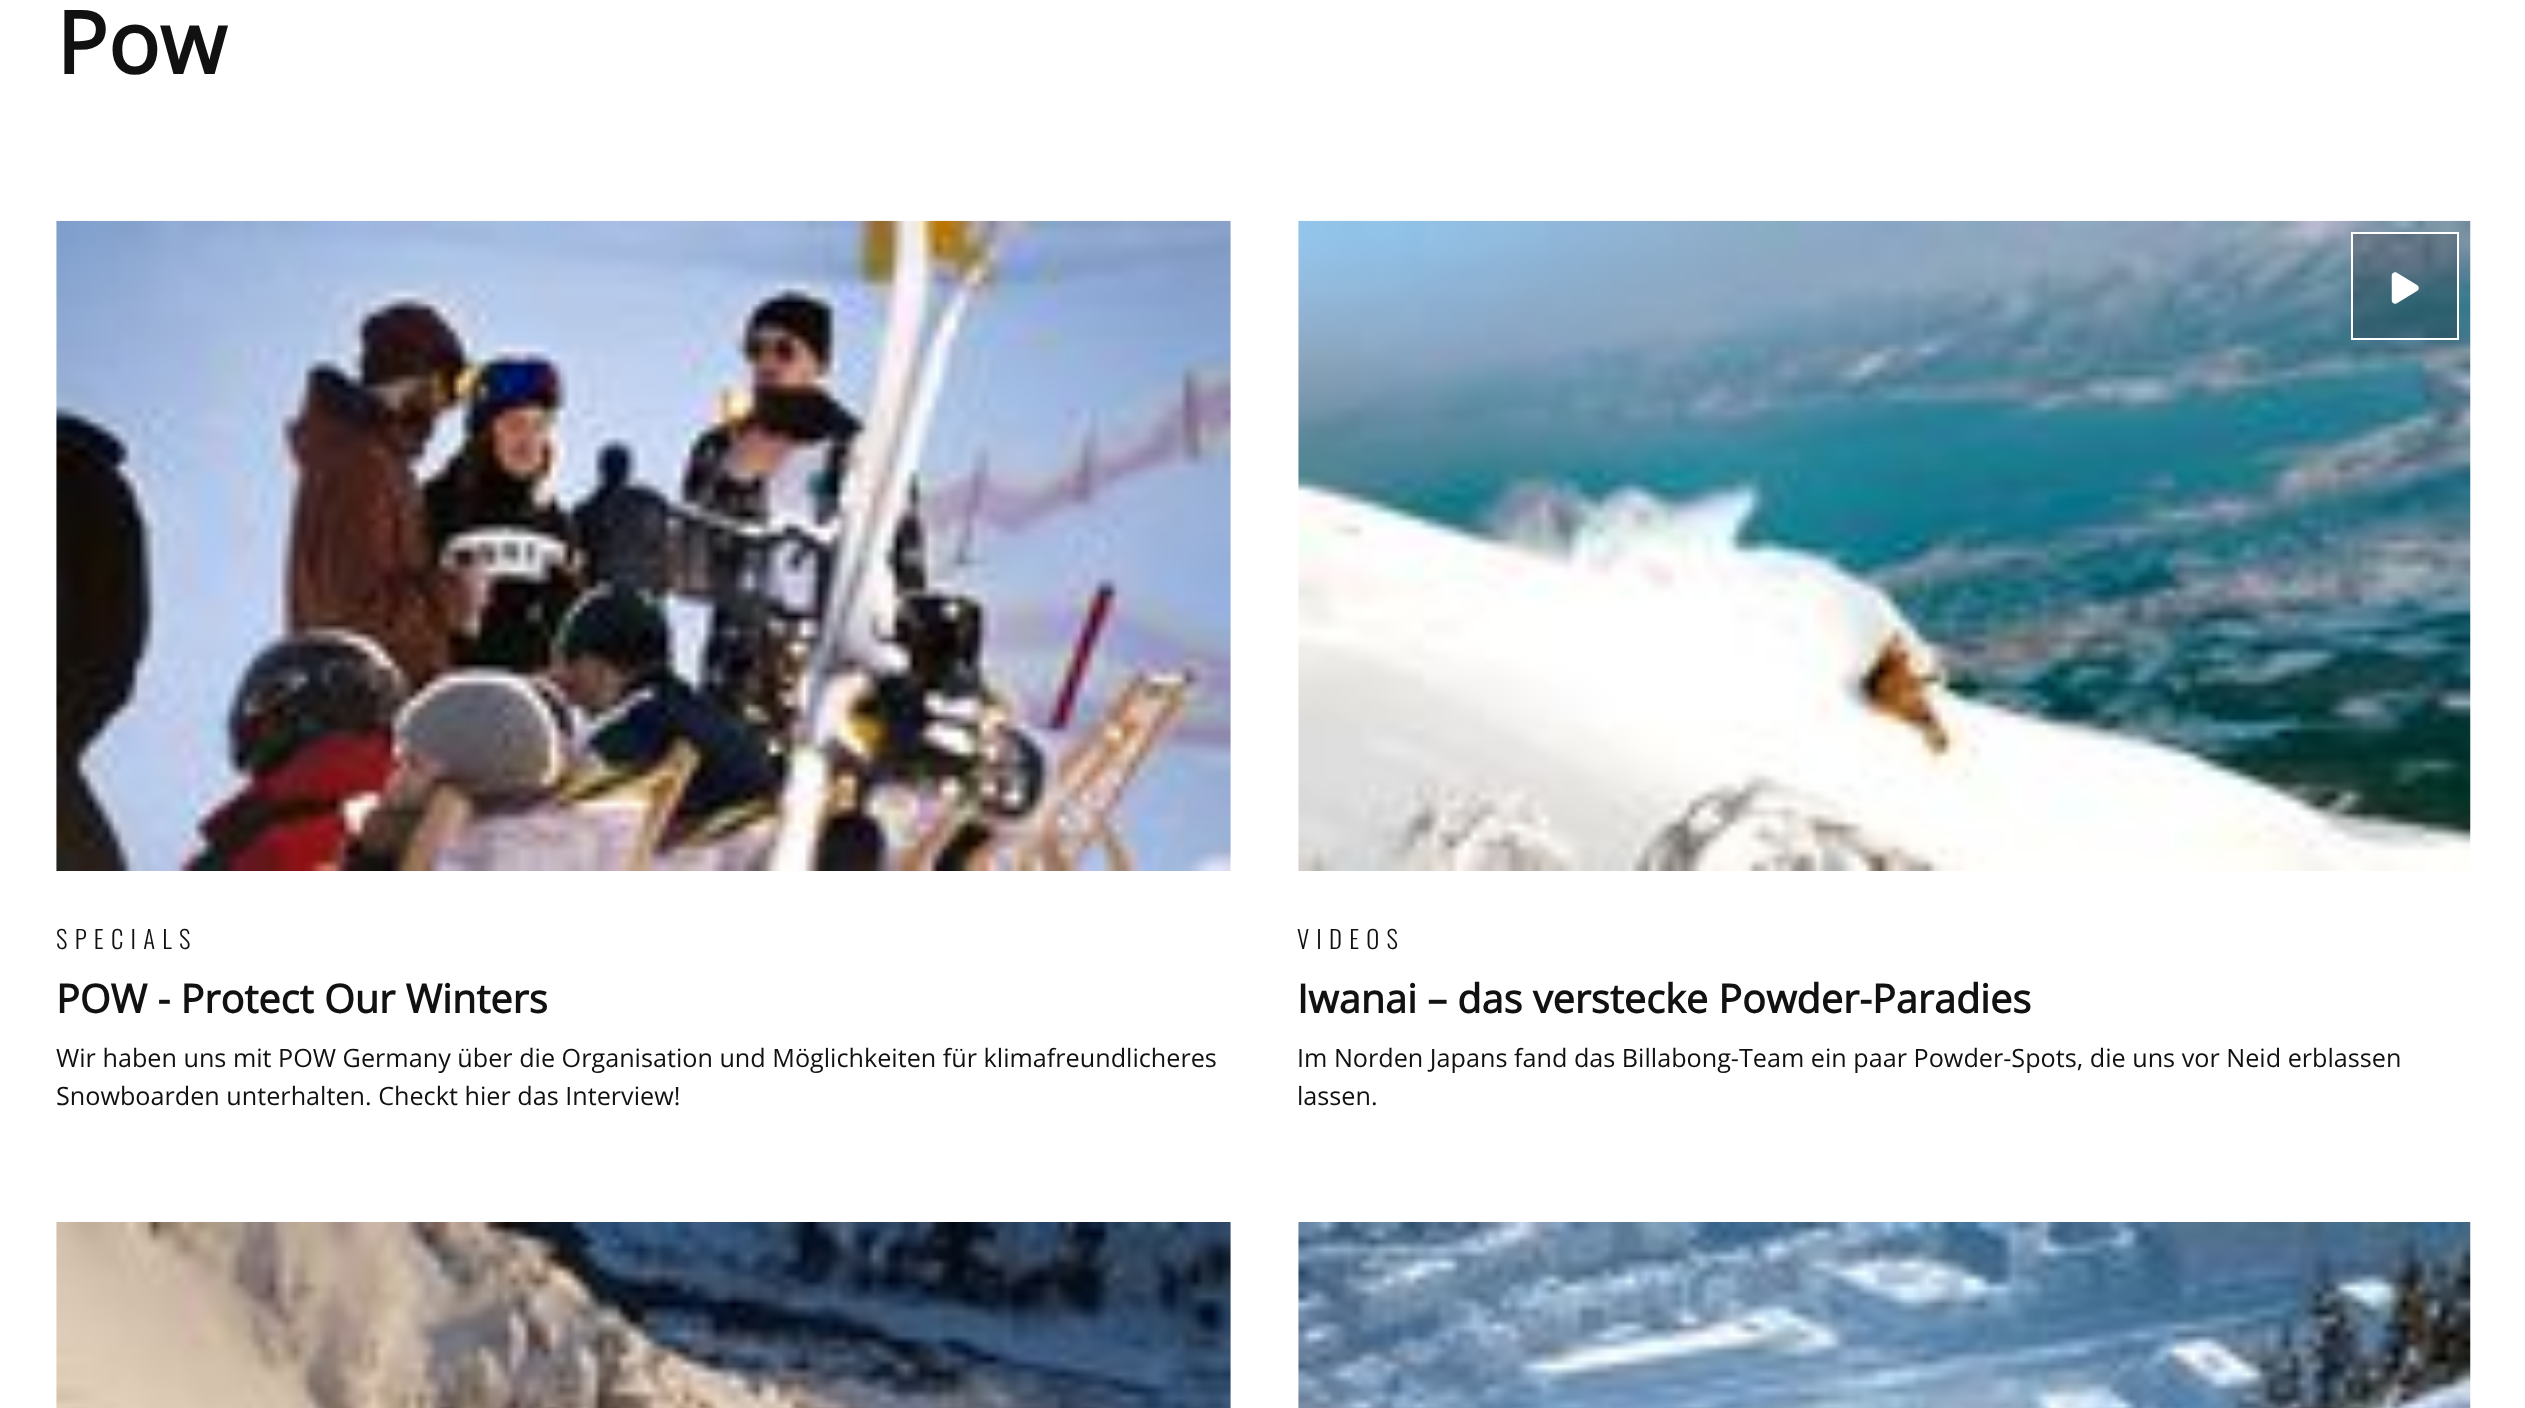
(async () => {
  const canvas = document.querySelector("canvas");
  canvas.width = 2525;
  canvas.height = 1408;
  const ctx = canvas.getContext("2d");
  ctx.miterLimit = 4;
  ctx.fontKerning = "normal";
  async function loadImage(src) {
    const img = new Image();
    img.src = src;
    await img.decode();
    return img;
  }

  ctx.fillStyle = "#ffffff";
  ctx.fillRect(0, 0, 2525, 1408);
  ctx.drawImage(await loadImage("img/1.png"), 56, 220, 1175, 651);
  ctx.drawImage(await loadImage("img/2.png"), 1298, 220, 1173, 651);
  ctx.fillStyle = "rgba(0, 0, 0, 0.2)";
  ctx.beginPath();
  ctx.rect(2352, 233, 106, 106);
  ctx.fill();
  ctx.strokeStyle = "#ffffff";
  ctx.lineWidth = 2;
  ctx.stroke();
  ctx.drawImage(await loadImage("img/3.png"), 2391, 272, 28, 32);
  ctx.drawImage(await loadImage("img/4.png"), 56, 1222, 1175, 186);
  ctx.drawImage(await loadImage("img/5.png"), 1298, 1222, 1173, 186);
  ctx.font = "bold 86px Open Sans";
  ctx.fillStyle = "#111111";
  ctx.fillText("Pow", 56, 74);
  ctx.letterSpacing = "7.25px";
  ctx.font = "300 24.75px Oswald";
  ctx.fillText("SPECIALS", 56, 949);
  ctx.letterSpacing = "0px";
  ctx.font = "bold 39.6px Open Sans";
  ctx.fillText("POW - Protect Our Winters", 56, 1013);
  ctx.font = "25.2px Open Sans";
  ctx.fillText("Wir haben uns mit POW Germany über die Organisation und Möglichkeiten für klimafreundlicheres", 56, 1067);
  ctx.fillText("Snowboarden unterhalten. Checkt hier das Interview!", 56, 1105);
  ctx.letterSpacing = "7.25px";
  ctx.font = "300 24.75px Oswald";
  ctx.fillText("VIDEOS", 1297, 949);
  ctx.letterSpacing = "0px";
  ctx.font = "bold 39.6px Open Sans";
  ctx.fillText("Iwanai – das verstecke Powder-Paradies", 1297, 1013);
  ctx.font = "25.2px Open Sans";
  ctx.fillText("Im Norden Japans fand das Billabong-Team ein paar Powder-Spots, die uns vor Neid erblassen", 1297, 1067);
  ctx.fillText("lassen.", 1297, 1105);
})();
